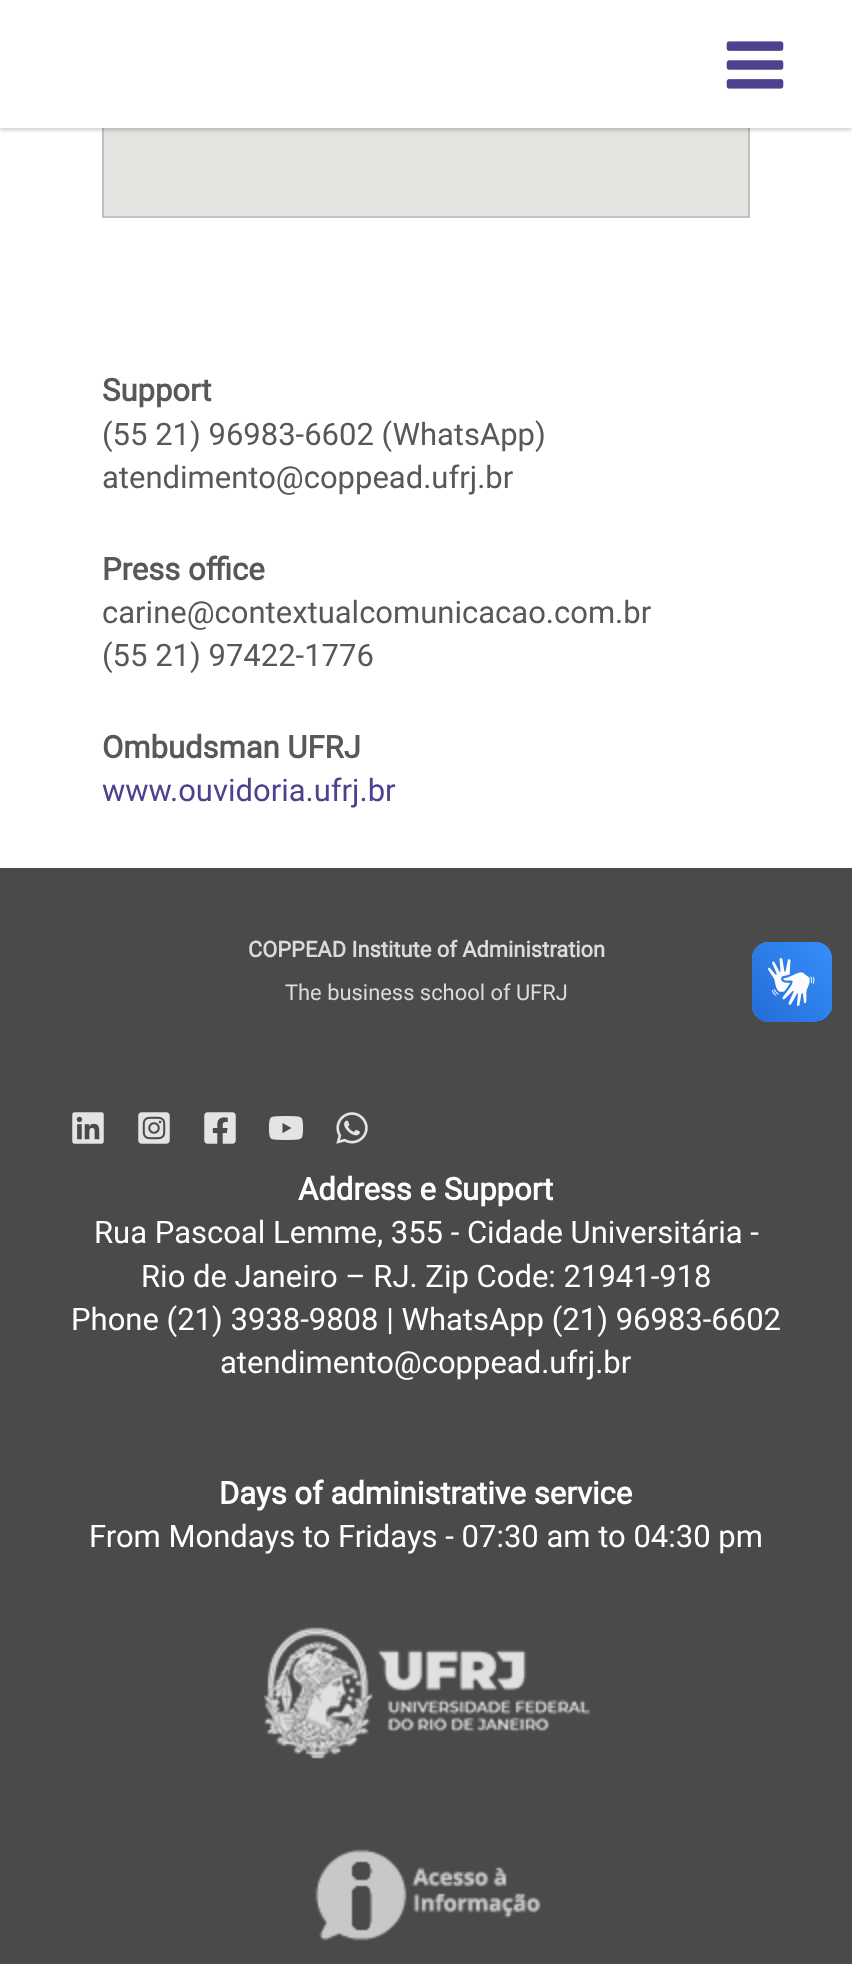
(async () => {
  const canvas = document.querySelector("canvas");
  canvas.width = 852;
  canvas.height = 1964;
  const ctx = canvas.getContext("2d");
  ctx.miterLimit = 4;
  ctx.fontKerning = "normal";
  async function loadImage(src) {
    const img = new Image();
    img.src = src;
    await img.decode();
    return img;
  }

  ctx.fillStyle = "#ffffff";
  ctx.fillRect(0, 0, 852, 1964);
  ctx.drawImage(await loadImage("img/2.png"), 102, 128, 648, 90);
  ctx.fillStyle = "rgba(0, 0, 0, 0.2)";
  ctx.filter = "blur(2px)";
  ctx.beginPath();
  ctx.rect(0, 2, 852, 128);
  ctx.fill();
  ctx.filter = "none";
  ctx.fillStyle = "#ffffff";
  ctx.fillRect(0, 0, 852, 128);
  ctx.drawImage(await loadImage("img/1.png"), 726, 41, 58, 48);
  ctx.fillStyle = "#4a4a4a";
  ctx.fillRect(0, 868, 852, 1096);
  ctx.drawImage(await loadImage("img/3.png"), 72, 1112, 32, 32);
  ctx.drawImage(await loadImage("img/4.png"), 138, 1112, 32, 32);
  ctx.drawImage(await loadImage("img/5.png"), 204, 1112, 32, 32);
  ctx.drawImage(await loadImage("img/6.png"), 268, 1116, 36, 24);
  ctx.drawImage(await loadImage("img/7.png"), 336, 1112, 32, 32);
  ctx.drawImage(await loadImage("img/8.png"), 264, 1627, 326, 132);
  ctx.drawImage(await loadImage("img/9.png"), 315, 1849, 226, 92);
  ctx.drawImage(await loadImage("img/10.png"), 752, 942, 80, 80);
  ctx.drawImage(await loadImage("img/11.png"), 752, 942, 80, 80);
  ctx.font = "bold 31px Roboto";
  ctx.fillStyle = "#585858";
  ctx.fillText("Support", 102, 401);
  ctx.font = "31px Roboto";
  ctx.fillText("(55 21) 96983-6602 (WhatsApp)", 102, 445);
  ctx.fillText("atendimento@coppead.ufrj.br", 102, 488);
  ctx.font = "bold 31px Roboto";
  ctx.fillText("Press office", 102, 580);
  ctx.font = "31px Roboto";
  ctx.fillText("carine@contextualcomunicacao.com.br", 102, 623);
  ctx.fillText("(55 21) 97422-1776", 102, 666);
  ctx.font = "bold 31px Roboto";
  ctx.fillText("Ombudsman UFRJ", 102, 758);
  ctx.font = "31px Roboto";
  ctx.fillStyle = "#4d428d";
  ctx.fillText("www.ouvidoria.ufrj.br", 102, 801);
  ctx.font = "bold 21.9px Roboto";
  ctx.fillStyle = "#dbdbdb";
  ctx.fillText("COPPEAD Institute of Administration", 248, 957);
  ctx.font = "21.9px Roboto";
  ctx.fillText("The business school of UFRJ", 285, 1000);
  ctx.font = "bold 31px Roboto";
  ctx.fillStyle = "#ffffff";
  ctx.fillText("Address e Support", 298, 1200);
  ctx.font = "31px Roboto";
  for (const [text, x, y] of [
    ["Rua Pascoal Lemme, 355 - Cidade Universitária -", 94, 1243],
    ["Rio de Janeiro – RJ. Zip Code: 21941-918", 141, 1287],
    ["Phone (21) 3938-9808 | WhatsApp (21) 96983-6602", 71, 1330],
    ["atendimento@coppead.ufrj.br", 220, 1373],
  ]) {
    ctx.fillText(text, x, y);
  }
  ctx.font = "bold 31px Roboto";
  ctx.fillText("Days of administrative service", 219, 1504);
  ctx.font = "31px Roboto";
  ctx.fillText("From Mondays to Fridays - 07:30 am to 04:30 pm", 89, 1547);
})();
